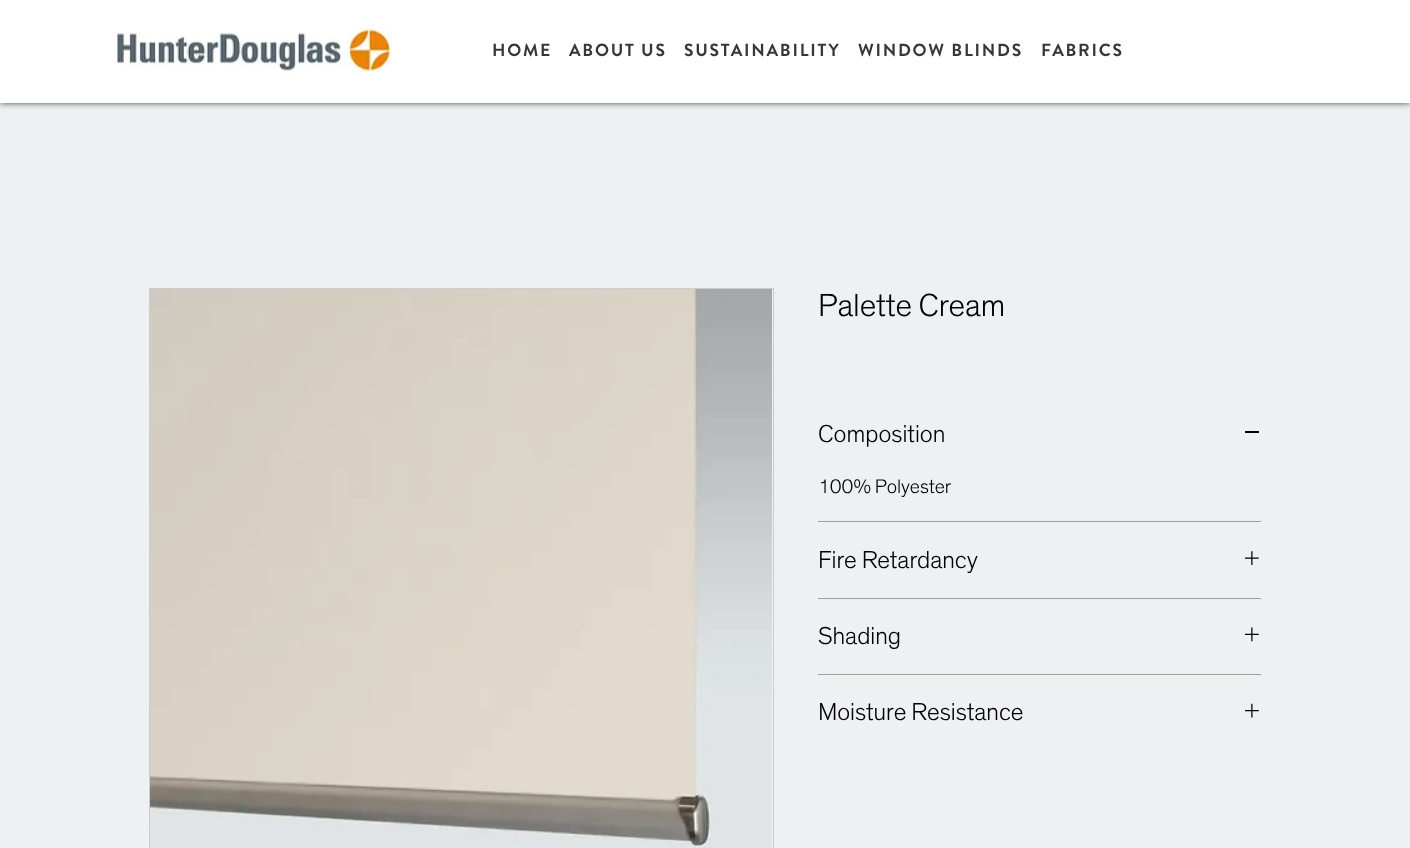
(async () => {
  const canvas = document.querySelector("canvas");
  canvas.width = 1410;
  canvas.height = 848;
  const ctx = canvas.getContext("2d");
  ctx.miterLimit = 4;
  ctx.fontKerning = "normal";
  async function loadImage(src) {
    const img = new Image();
    img.src = src;
    await img.decode();
    return img;
  }

  ctx.fillStyle = "#edf1f2";
  ctx.fillRect(0, 0, 1410, 848);
  ctx.fillStyle = "rgba(0, 0, 0, 0.7)";
  ctx.filter = "blur(3px)";
  ctx.beginPath();
  ctx.rect(0, 0, 1410, 103);
  ctx.fill();
  ctx.filter = "none";
  ctx.fillStyle = "#ffffff";
  ctx.fillRect(0, 0, 1410, 103);
  ctx.drawImage(await loadImage("img/1.png"), 115, 27, 277, 46);
  ctx.strokeStyle = "#cccccc";
  ctx.strokeRect(149.5, 288.5, 624, 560);
  ctx.drawImage(await loadImage("img/2.png"), 150, 289, 622, 559);
  for (const [x, y, w, h, color] of [
    [818, 521, 443, 1, "#a0a09f"],
    [1245, 431, 14, 2, "#000000"],
    [818, 598, 443, 1, "#a0a09f"],
  ]) {
    ctx.fillStyle = color;
    ctx.fillRect(x, y, w, h);
  }
  ctx.drawImage(await loadImage("img/3.png"), 1245, 551, 14, 14);
  ctx.fillRect(818, 674, 443, 1);
  ctx.drawImage(await loadImage("img/4.png"), 1245, 627, 14, 15);
  ctx.drawImage(await loadImage("img/5.png"), 1245, 703, 14, 15);
  ctx.letterSpacing = "1.75px";
  ctx.font = "bold 17.5px Brandon Grotesque";
  ctx.fillStyle = "#38363d";
  for (const [text, x, y] of [
    ["HOME", 492, 56],
    ["ABOUT US", 569, 56],
    ["SUSTAINABILITY", 684, 56],
    ["WINDOW BLINDS", 858, 56],
    ["FABRICS", 1041, 56],
  ]) {
    ctx.fillText(text, x, y);
  }
  ctx.letterSpacing = "0px";
  ctx.font = "300 32.5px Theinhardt";
  ctx.fillStyle = "#000000";
  ctx.fillText("Palette Cream", 818, 316);
  ctx.font = "300 25px Theinhardt";
  ctx.fillText("Composition", 818, 442);
  ctx.font = "300 20px Theinhardt";
  ctx.fillText("100% Polyester", 818, 493);
  ctx.font = "300 25px Theinhardt";
  for (const [text, x, y] of [
    ["Fire Retardancy", 818, 568],
    ["Shading", 818, 644],
    ["Moisture Resistance", 818, 720],
  ]) {
    ctx.fillText(text, x, y);
  }
})();
